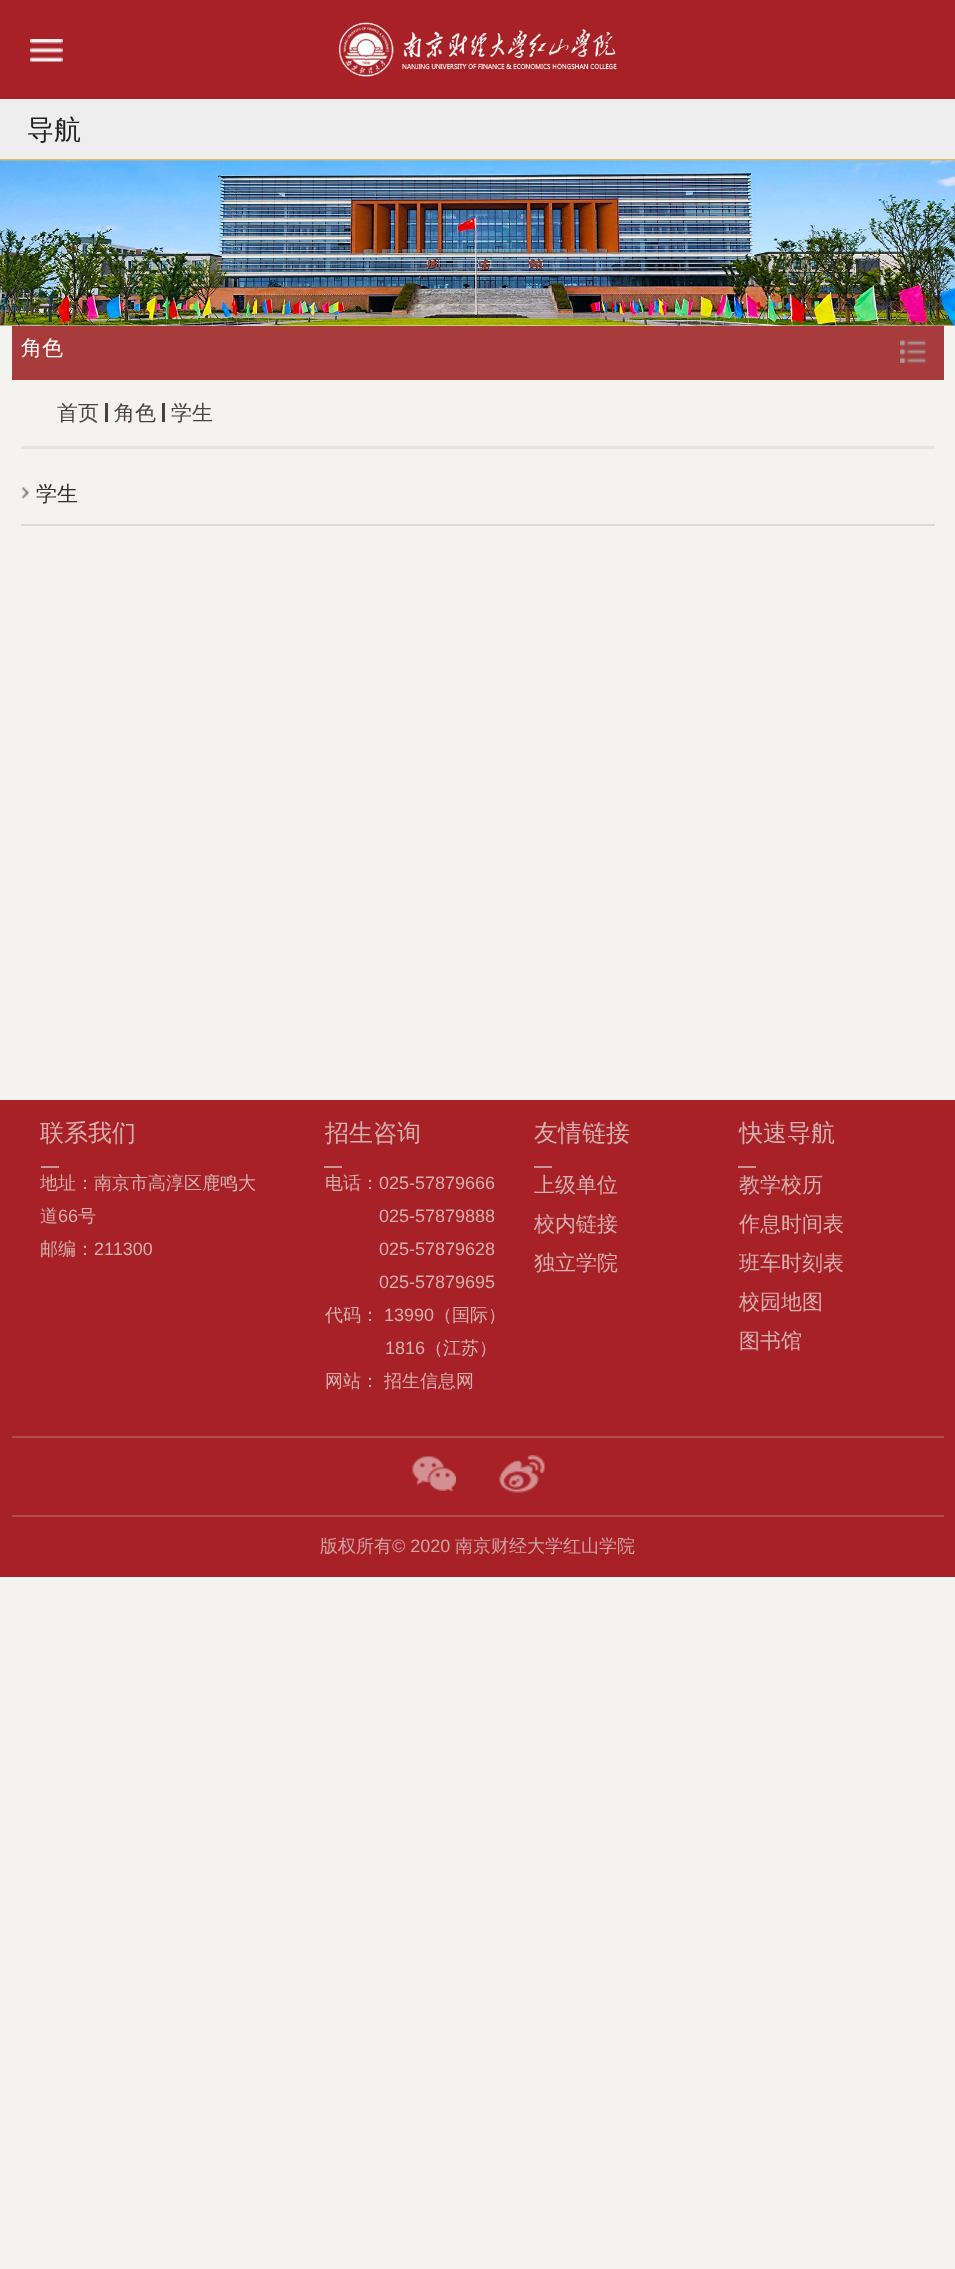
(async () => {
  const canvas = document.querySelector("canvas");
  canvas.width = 955;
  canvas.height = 2269;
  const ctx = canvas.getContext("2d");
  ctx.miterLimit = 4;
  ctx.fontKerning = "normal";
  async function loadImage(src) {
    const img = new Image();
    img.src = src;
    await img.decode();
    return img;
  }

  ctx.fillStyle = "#f5f3f0";
  ctx.fillRect(0, 0, 955, 2269);
  ctx.fillStyle = "#a72126";
  ctx.fillRect(0, 0, 955, 99);
  ctx.drawImage(await loadImage("img/1.png"), 30, 39, 33, 23);
  ctx.drawImage(await loadImage("img/2.png"), 339, 22, 278, 55);
  for (const [x, y, w, h, color] of [
    [0, 99, 955, 60, "#eeeeee"],
    [0, 325, 955, 1, "#ececec"],
    [0, 159, 955, 2, "#dfba5d"],
  ]) {
    ctx.fillStyle = color;
    ctx.fillRect(x, y, w, h);
  }
  ctx.drawImage(await loadImage("img/3.png"), 0, 160, 955, 166);
  ctx.fillStyle = "#a83b3b";
  ctx.fillRect(12, 326, 932, 54);
  ctx.drawImage(await loadImage("img/4.png"), 900, 340, 26, 23);
  for (const [x, y, w, h, color] of [
    [21, 446, 914, 3, "#e5e5e5"],
    [105, 403, 3, 19, "#444444"],
    [162, 403, 3, 19, "#444444"],
  ]) {
    ctx.fillStyle = color;
    ctx.fillRect(x, y, w, h);
  }
  ctx.drawImage(await loadImage("img/5.png"), 21, 487, 8, 12);
  for (const [x, y, w, h, color] of [
    [21, 524, 914, 2, "#dbdad6"],
    [0, 1100, 955, 477, "#a72126"],
    [12, 1436, 932, 2, "#b14f4f"],
    [41, 1166, 18, 2, "#ce9495"],
    [324, 1166, 18, 2, "#ce9495"],
    [534, 1166, 18, 2, "#ce9495"],
    [738, 1166, 18, 2, "#ce9495"],
    [12, 1515, 932, 2, "#b14f4f"],
  ]) {
    ctx.fillStyle = color;
    ctx.fillRect(x, y, w, h);
  }
  ctx.drawImage(await loadImage("img/6.png"), 412, 1456, 44, 35);
  ctx.drawImage(await loadImage("img/7.png"), 499, 1455, 46, 38);
  ctx.font = "500 27px WenQuanYi Zen Hei";
  ctx.fillStyle = "#212121";
  ctx.fillText("导航", 27, 139);
  ctx.font = "500 21px WenQuanYi Zen Hei";
  ctx.fillStyle = "#ffffff";
  ctx.fillText("角色", 21, 355);
  ctx.fillStyle = "#454545";
  for (const [text, x, y] of [
    ["首页", 57, 420],
    ["角色", 114, 420],
    ["学生", 171, 420],
  ]) {
    ctx.fillText(text, x, y);
  }
  ctx.fillStyle = "#333333";
  ctx.fillText("学生", 36, 501);
  ctx.font = "500 24px WenQuanYi Zen Hei";
  ctx.fillStyle = "#d6afaf";
  ctx.fillText("联系我们", 40, 1141);
  ctx.font = "500 18px WenQuanYi Zen Hei";
  ctx.fillText("地址：南京市高淳区鹿鸣大", 40, 1189);
  ctx.fillText("道", 40, 1222);
  ctx.font = "18px Liberation Sans";
  ctx.fillText("66", 58, 1222);
  ctx.font = "500 18px WenQuanYi Zen Hei";
  ctx.fillText("号", 78, 1222);
  ctx.fillText("邮编：", 40, 1255);
  ctx.font = "18px Liberation Sans";
  ctx.fillText("211300", 94, 1255);
  ctx.font = "500 24px WenQuanYi Zen Hei";
  ctx.fillText("招生咨询", 325, 1141);
  ctx.font = "500 18px WenQuanYi Zen Hei";
  ctx.fillText("电话：", 325, 1189);
  ctx.font = "18px Liberation Sans";
  for (const [text, x, y] of [
    ["025-57879666", 379, 1189],
    ["025-57879888", 379, 1222],
    ["025-57879628", 379, 1255],
    ["025-57879695", 379, 1288],
  ]) {
    ctx.fillText(text, x, y);
  }
  ctx.font = "500 18px WenQuanYi Zen Hei";
  ctx.fillText("代码：", 325, 1321);
  ctx.font = "18px Liberation Sans";
  ctx.fillText("13990", 384, 1321);
  ctx.font = "500 18px WenQuanYi Zen Hei";
  ctx.fillText("（国际）", 434, 1321);
  ctx.font = "18px Liberation Sans";
  ctx.fillText("1816", 385, 1354);
  ctx.font = "500 18px WenQuanYi Zen Hei";
  for (const [text, x, y] of [
    ["（江苏）", 425, 1354],
    ["网站：", 325, 1387],
    ["招生信息网", 384, 1387],
  ]) {
    ctx.fillText(text, x, y);
  }
  ctx.font = "500 24px WenQuanYi Zen Hei";
  ctx.fillText("友情链接", 534, 1141);
  ctx.font = "500 21px WenQuanYi Zen Hei";
  for (const [text, x, y] of [
    ["上级单位", 534, 1192],
    ["校内链接", 534, 1231],
    ["独立学院", 534, 1270],
  ]) {
    ctx.fillText(text, x, y);
  }
  ctx.font = "500 24px WenQuanYi Zen Hei";
  ctx.fillText("快速导航", 739, 1141);
  ctx.font = "500 21px WenQuanYi Zen Hei";
  for (const [text, x, y] of [
    ["教学校历", 739, 1192],
    ["作息时间表", 739, 1231],
    ["班车时刻表", 739, 1270],
    ["校园地图", 739, 1309],
    ["图书馆", 739, 1348],
  ]) {
    ctx.fillText(text, x, y);
  }
  ctx.font = "500 18px WenQuanYi Zen Hei";
  ctx.fillStyle = "#d1a3a3";
  ctx.fillText("版权所有", 320, 1552);
  ctx.font = "18px Liberation Sans";
  ctx.fillText("© 2020", 392, 1552);
  ctx.font = "500 18px WenQuanYi Zen Hei";
  ctx.fillText("南京财经大学红山学院", 455, 1552);
})();
